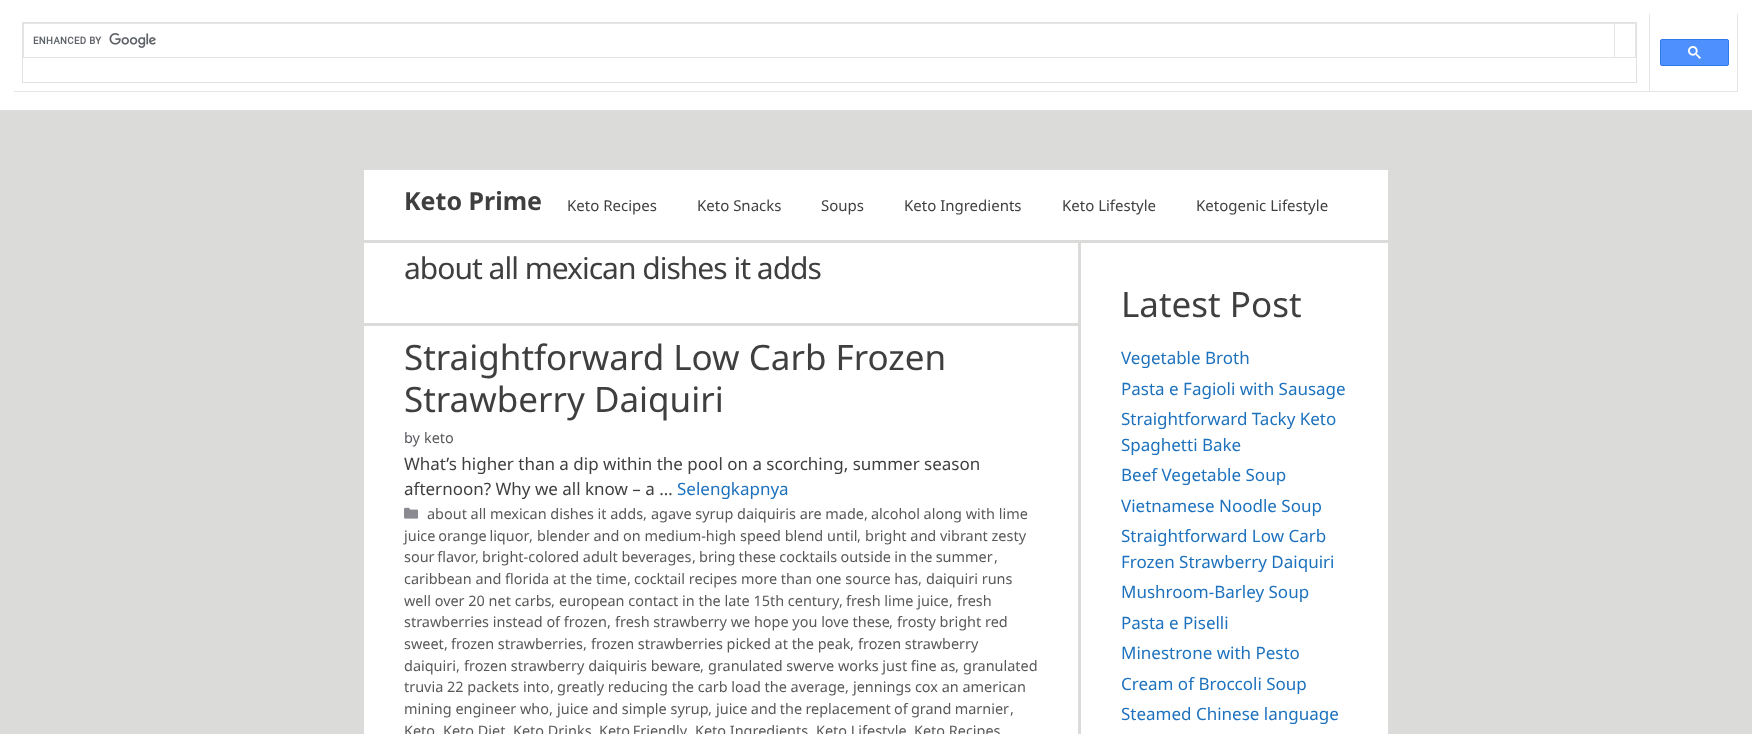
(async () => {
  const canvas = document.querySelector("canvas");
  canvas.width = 1752;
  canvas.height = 734;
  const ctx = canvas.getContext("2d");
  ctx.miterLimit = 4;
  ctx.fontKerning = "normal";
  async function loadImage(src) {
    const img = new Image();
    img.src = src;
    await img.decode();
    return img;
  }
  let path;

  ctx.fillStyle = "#dbdbd9";
  ctx.fillRect(0, 0, 1752, 734);
  ctx.fillStyle = "#ffffff";
  ctx.fillRect(0, 0, 1752, 110);
  ctx.fillStyle = "#e6e6e6";
  path = new Path2D("M1650 14V92L1649 91V14Z");
  ctx.fill(path);
  ctx.fillStyle = "rgba(0, 0, 0, 0.1)";
  path = new Path2D("M1650 92H14V91H1649Z");
  ctx.fill(path);
  ctx.strokeStyle = "#dfe1e5";
  ctx.strokeRect(22.5, 22.5, 1614, 60);
  ctx.fillStyle = "#e6e6e6";
  path = new Path2D("M23 23H1636V24H24Z");
  ctx.fill(path);
  ctx.fillStyle = "rgba(0, 0, 0, 0.1)";
  path = new Path2D("M23 58V23L24 24V58Z");
  ctx.fill(path);
  ctx.fillStyle = "#e6e6e6";
  path = new Path2D("M1615 24V58L1614 57V24Z");
  ctx.fill(path);
  ctx.fillStyle = "rgba(0, 0, 0, 0.1)";
  path = new Path2D("M1615 58H24V57H1614Z");
  ctx.fill(path);
  ctx.drawImage(await loadImage("img/1.png"), 33, 33, 123, 15);
  ctx.fillStyle = "#e6e6e6";
  path = new Path2D("M1636 24V58L1635 57V24Z");
  ctx.fill(path);
  ctx.fillStyle = "rgba(0, 0, 0, 0.1)";
  path = new Path2D("M1636 58H1615V57H1635Z");
  ctx.fill(path);
  ctx.fillStyle = "#e6e6e6";
  path = new Path2D("M1738 14V92L1737 91V14Z");
  ctx.fill(path);
  ctx.fillStyle = "rgba(0, 0, 0, 0.1)";
  path = new Path2D("M1738 92H1650V91H1737Z");
  ctx.fill(path);
  ctx.fillStyle = "#4d90fe";
  ctx.beginPath();
  ctx.roundRect(1660.5, 39.5, 68, 26, 1.5);
  ctx.fill();
  ctx.strokeStyle = "#3079ed";
  ctx.stroke();
  ctx.drawImage(await loadImage("img/2.png"), 1688, 46, 13, 13);
  for (const [x, y, w, h, color] of [
    [364, 170, 1024, 70, "#ffffff"],
    [364, 243, 714, 80, "#ffffff"],
    [364, 326, 714, 408, "#ffffff"],
  ]) {
    ctx.fillStyle = color;
    ctx.fillRect(x, y, w, h);
  }
  ctx.drawImage(await loadImage("img/3.png"), 404, 507, 14, 12);
  ctx.fillRect(1081, 243, 307, 491);
  ctx.font = "bold 25px Noto Sans";
  ctx.fillStyle = "#3f3f3f";
  ctx.fillText("Keto Prime", 404, 210);
  ctx.font = "15px Noto Sans";
  for (const [text, x, y] of [
    ["Keto Recipes", 567, 211],
    ["Keto Snacks", 697, 211],
    ["Soups", 821, 211],
    ["Keto Ingredients", 904, 211],
    ["Keto Lifestyle", 1062, 211],
    ["Ketogenic Lifestyle", 1196, 211],
  ]) {
    ctx.fillText(text, x, y);
  }
  ctx.letterSpacing = "-1px";
  ctx.font = "30px Noto Sans";
  ctx.fillText("about all mexican dishes it adds", 404, 279);
  ctx.letterSpacing = "0px";
  ctx.font = "35px Noto Sans";
  ctx.fillText("Straightforward Low Carb Frozen", 404, 370);
  ctx.fillText("Strawberry Daiquiri", 404, 412);
  ctx.font = "14.45px Noto Sans";
  ctx.fillStyle = "#575760";
  ctx.fillText("by", 404, 443);
  ctx.fillStyle = "#595959";
  ctx.fillText("keto", 424, 443);
  ctx.font = "17px Noto Sans";
  ctx.fillStyle = "#3f3f3f";
  ctx.fillText("What’s higher than a dip within the pool on a scorching, summer season", 404, 470);
  ctx.fillText("afternoon? Why we all know – a …", 404, 495);
  ctx.fillStyle = "#1e72bd";
  ctx.fillText("Selengkapnya", 677, 495);
  ctx.font = "14.45px Noto Sans";
  ctx.fillStyle = "#595959";
  ctx.fillText("about all mexican dishes it adds", 427, 519);
  ctx.fillStyle = "#575760";
  ctx.fillText(",", 643, 519);
  ctx.fillStyle = "#595959";
  ctx.fillText("agave syrup daiquiris are made", 651, 519);
  ctx.fillStyle = "#575760";
  ctx.fillText(",", 864, 519);
  ctx.fillStyle = "#595959";
  ctx.fillText("alcohol along with lime", 871, 519);
  ctx.wordSpacing = "-1px";
  ctx.fillText("juice orange liquor", 404, 541);
  ctx.wordSpacing = "0px";
  ctx.fillStyle = "#575760";
  ctx.fillText(",", 529, 541);
  ctx.fillStyle = "#595959";
  ctx.fillText("blender and on medium-high speed blend until", 537, 541);
  ctx.fillStyle = "#575760";
  ctx.fillText(",", 857, 541);
  ctx.fillStyle = "#595959";
  ctx.fillText("bright and vibrant zesty", 865, 541);
  ctx.wordSpacing = "-1px";
  ctx.fillText("sour flavor", 404, 562);
  ctx.wordSpacing = "0px";
  ctx.fillText("bright-colored adult beverages", 482, 562);
  ctx.wordSpacing = "-0.5px";
  ctx.fillText("bring these cocktails outside in the summer", 699, 562);
  ctx.wordSpacing = "0px";
  ctx.fillStyle = "#575760";
  for (const [text, x, y] of [
    [",", 475, 562],
    [",", 692, 562],
    [",", 994, 562],
  ]) {
    ctx.fillText(text, x, y);
  }
  ctx.fillStyle = "#595959";
  ctx.fillText("caribbean and florida at the time", 404, 584);
  ctx.fillStyle = "#575760";
  ctx.fillText(",", 627, 584);
  ctx.fillStyle = "#595959";
  ctx.fillText("cocktail recipes more than one source has", 634, 584);
  ctx.fillStyle = "#575760";
  ctx.fillText(",", 918, 584);
  ctx.fillStyle = "#595959";
  ctx.fillText("daiquiri runs", 926, 584);
  ctx.fillText("well over 20 net carbs", 404, 606);
  ctx.fillStyle = "#575760";
  ctx.fillText(",", 551, 606);
  ctx.fillStyle = "#595959";
  ctx.fillText("european contact in the late 15th century", 559, 606);
  ctx.fillStyle = "#575760";
  ctx.fillText(",", 839, 606);
  ctx.fillStyle = "#595959";
  ctx.fillText("fresh lime juice", 846, 606);
  ctx.fillStyle = "#575760";
  ctx.fillText(",", 949, 606);
  ctx.fillStyle = "#595959";
  ctx.fillText("fresh", 957, 606);
  ctx.fillText("strawberries instead of frozen", 404, 627);
  ctx.fillStyle = "#575760";
  ctx.fillText(",", 607, 627);
  ctx.fillStyle = "#595959";
  ctx.fillText("fresh strawberry we hope you love these", 615, 627);
  ctx.fillStyle = "#575760";
  ctx.fillText(",", 889, 627);
  ctx.fillStyle = "#595959";
  ctx.fillText("frosty bright red", 897, 627);
  ctx.fillText("sweet", 404, 649);
  ctx.fillStyle = "#575760";
  ctx.fillText(",", 444, 649);
  ctx.fillStyle = "#595959";
  ctx.fillText("frozen strawberries", 451, 649);
  ctx.fillStyle = "#575760";
  ctx.fillText(",", 583, 649);
  ctx.fillStyle = "#595959";
  ctx.fillText("frozen strawberries picked at the peak", 591, 649);
  ctx.fillStyle = "#575760";
  ctx.fillText(",", 850, 649);
  ctx.fillStyle = "#595959";
  ctx.fillText("frozen strawberry", 858, 649);
  ctx.fillText("daiquiri", 404, 671);
  ctx.fillStyle = "#575760";
  ctx.fillText(",", 456, 671);
  ctx.fillStyle = "#595959";
  ctx.fillText("frozen strawberry daiquiris beware", 464, 671);
  ctx.fillStyle = "#575760";
  ctx.fillText(",", 700, 671);
  ctx.fillStyle = "#595959";
  ctx.fillText("granulated swerve works just fine as", 708, 671);
  ctx.fillStyle = "#575760";
  ctx.fillText(",", 955, 671);
  ctx.fillStyle = "#595959";
  ctx.fillText("granulated", 963, 671);
  ctx.fillText("truvia 22 packets into", 404, 692);
  ctx.fillStyle = "#575760";
  ctx.fillText(",", 550, 692);
  ctx.fillStyle = "#595959";
  ctx.fillText("greatly reducing the carb load the average", 557, 692);
  ctx.fillStyle = "#575760";
  ctx.fillText(",", 845, 692);
  ctx.fillStyle = "#595959";
  ctx.fillText("jennings cox an american", 853, 692);
  ctx.fillText("mining engineer who", 404, 714);
  ctx.fillStyle = "#575760";
  ctx.fillText(",", 549, 714);
  ctx.fillStyle = "#595959";
  ctx.fillText("juice and simple syrup", 557, 714);
  ctx.fillStyle = "#575760";
  ctx.fillText(",", 708, 714);
  ctx.wordSpacing = "-0.5px";
  ctx.fillStyle = "#595959";
  ctx.fillText("juice and the replacement of grand marnier", 716, 714);
  ctx.wordSpacing = "0px";
  ctx.fillStyle = "#575760";
  ctx.fillText(",", 1010, 714);
  ctx.fillStyle = "#595959";
  for (const [text, x, y] of [
    ["Keto", 404, 736],
    ["Keto Diet", 443, 736],
    ["Keto Drinks", 513, 736],
  ]) {
    ctx.fillText(text, x, y);
  }
  ctx.wordSpacing = "-1px";
  ctx.fillText("Keto Friendly", 599, 736);
  ctx.wordSpacing = "0px";
  for (const [text, x, y] of [
    ["Keto Ingredients", 695, 736],
    ["Keto Lifestyle", 816, 736],
    ["Keto Recipes", 914, 736],
  ]) {
    ctx.fillText(text, x, y);
  }
  ctx.font = "35px Noto Sans";
  ctx.fillStyle = "#3f3f3f";
  ctx.fillText("Latest Post", 1121, 317);
  ctx.font = "17px Noto Sans";
  ctx.fillStyle = "#1e72bd";
  for (const [text, x, y] of [
    ["Vegetable Broth", 1121, 364],
    ["Pasta e Fagioli with Sausage", 1121, 395],
    ["Straightforward Tacky Keto", 1121, 425],
    ["Spaghetti Bake", 1121, 451],
    ["Beef Vegetable Soup", 1121, 481],
    ["Vietnamese Noodle Soup", 1121, 512],
    ["Straightforward Low Carb", 1121, 542],
    ["Frozen Strawberry Daiquiri", 1121, 568],
    ["Mushroom-Barley Soup", 1121, 598],
    ["Pasta e Piselli", 1121, 629],
    ["Minestrone with Pesto", 1121, 659],
    ["Cream of Broccoli Soup", 1121, 690],
    ["Steamed Chinese language", 1121, 720],
  ]) {
    ctx.fillText(text, x, y);
  }
})();
